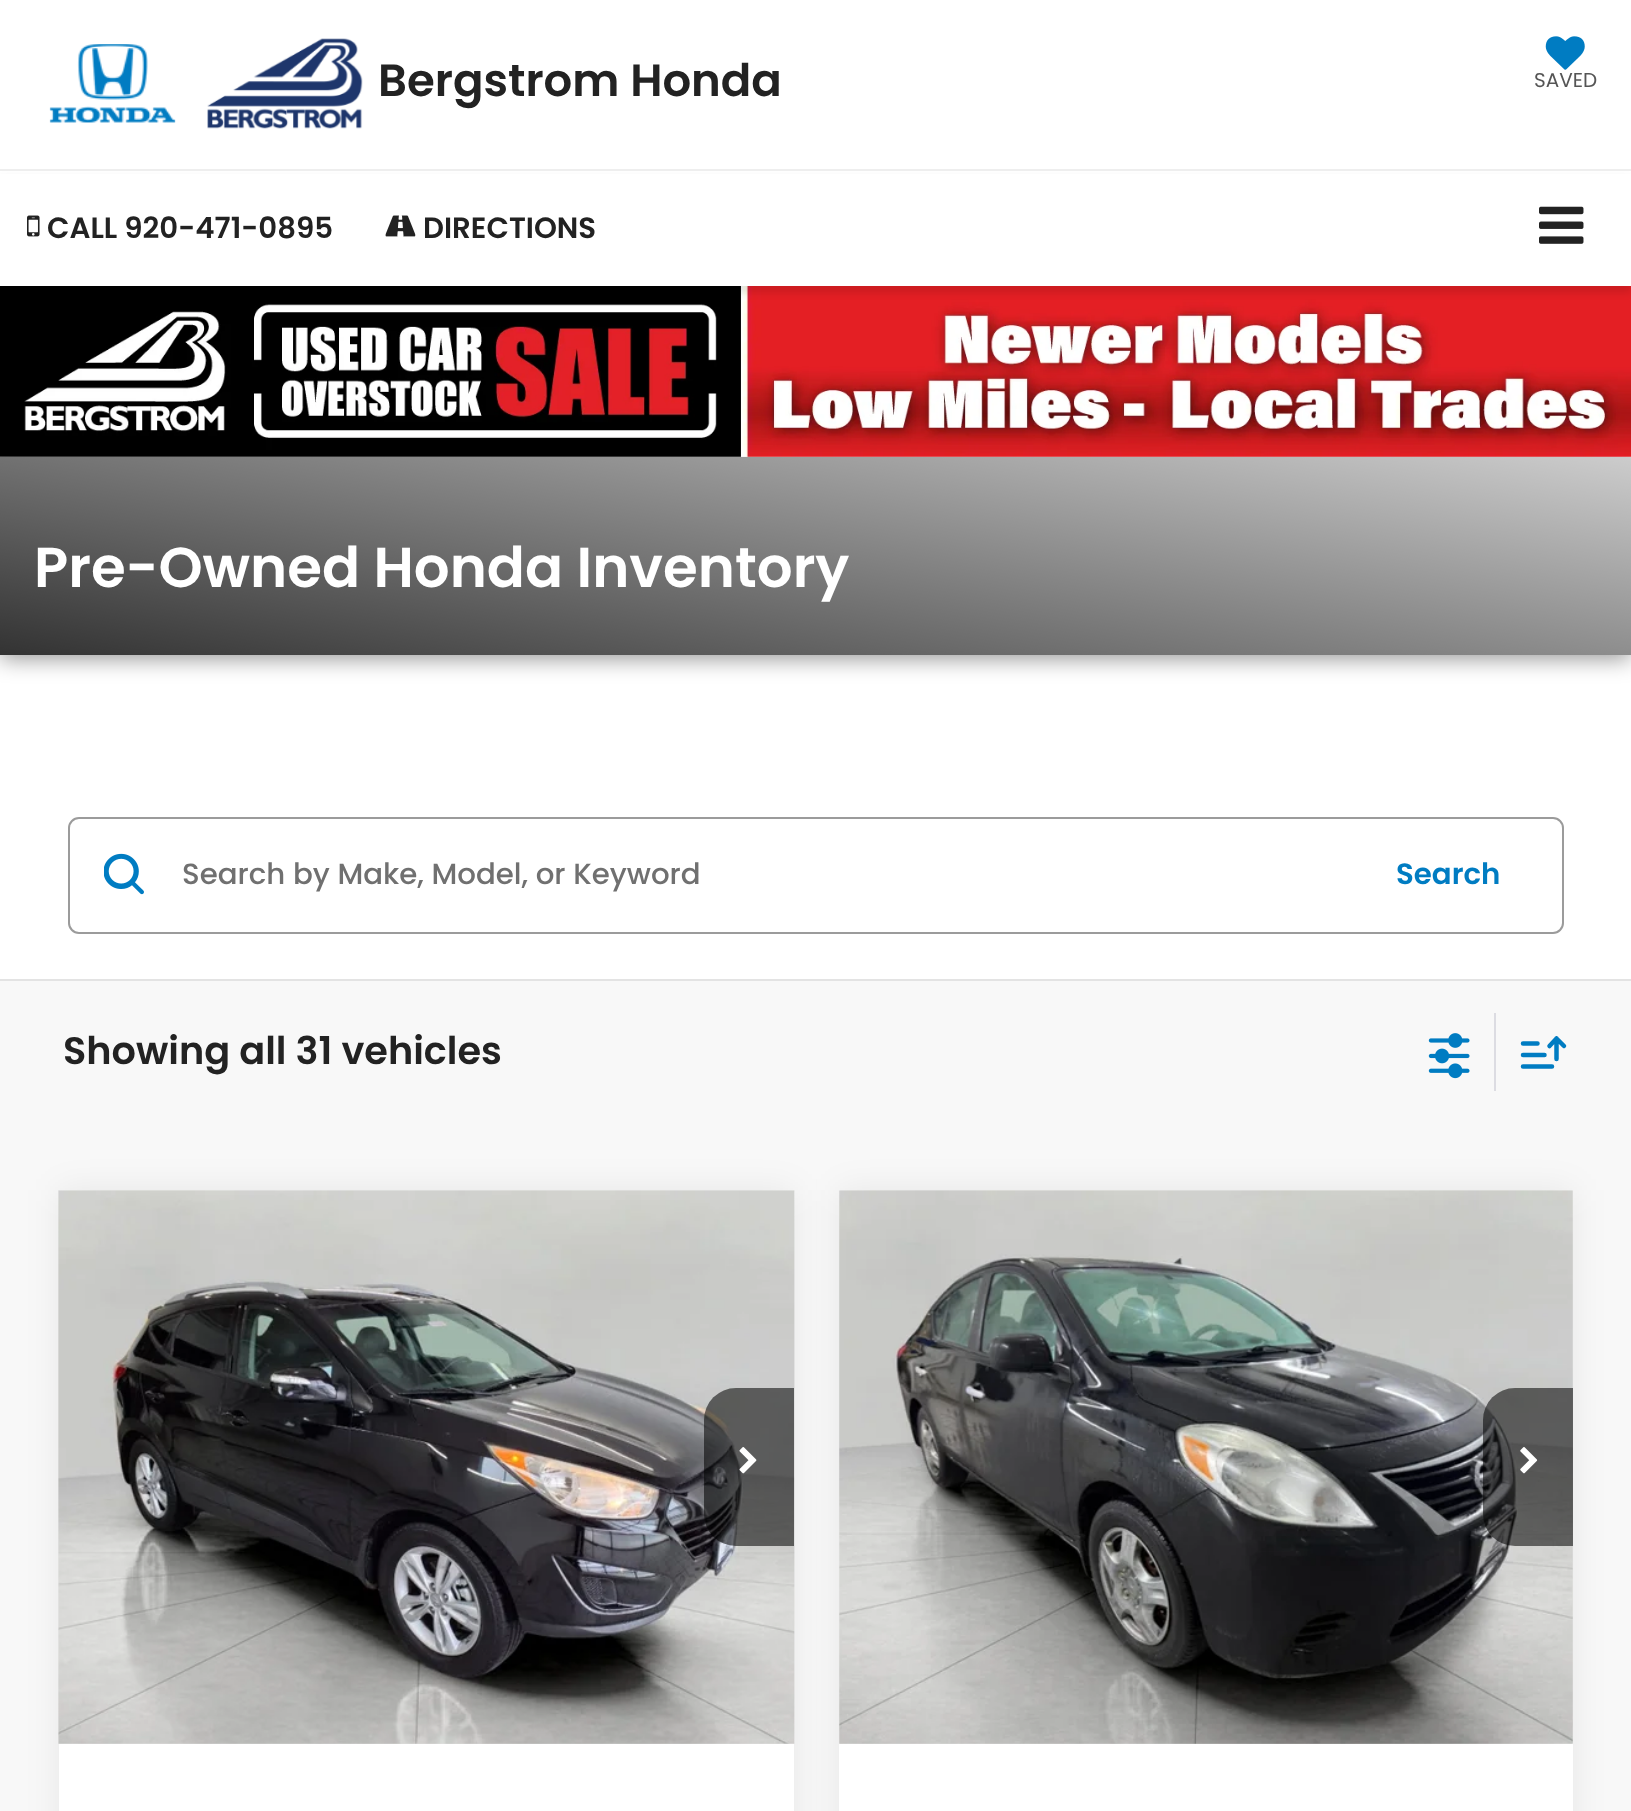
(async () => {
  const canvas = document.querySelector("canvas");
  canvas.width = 1631;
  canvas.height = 1811;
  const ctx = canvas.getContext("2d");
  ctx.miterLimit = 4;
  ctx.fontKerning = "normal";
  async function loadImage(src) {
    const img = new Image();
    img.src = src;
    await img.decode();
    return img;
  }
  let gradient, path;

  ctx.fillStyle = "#ffffff";
  ctx.fillRect(0, 0, 1631, 1811);
  ctx.drawImage(await loadImage("img/1.png"), 49, 44, 127, 79);
  ctx.drawImage(await loadImage("img/2.png"), 207, 38, 156, 91);
  ctx.drawImage(await loadImage("img/3.png"), 1545, 36, 40, 34);
  ctx.fillStyle = "#eeeeee";
  ctx.fillRect(0, 169, 1631, 2);
  ctx.save();
  path = new Path2D("M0 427H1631V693H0ZM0 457H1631V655H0Z");
  ctx.clip(path, "evenodd");
  ctx.fillStyle = "rgba(0, 0, 0, 0.4)";
  ctx.filter = "blur(11px)";
  ctx.beginPath();
  ctx.rect(0, 461, 1631, 198);
  ctx.fill();
  ctx.filter = "none";
  ctx.restore();
  ctx.drawImage(await loadImage("img/7.png"), 0, 286, 1631, 171);
  ctx.fillStyle = "rgba(0, 0, 0, 0.1)";
  ctx.filter = "blur(3.5px)";
  ctx.beginPath();
  ctx.rect(0, 178, 1631, 115);
  ctx.fill();
  ctx.filter = "none";
  ctx.fillStyle = "#ffffff";
  ctx.fillRect(0, 174, 1631, 112);
  ctx.drawImage(await loadImage("img/4.png"), 27, 215, 13, 22);
  ctx.drawImage(await loadImage("img/5.png"), 385, 215, 31, 22);
  ctx.drawImage(await loadImage("img/6.png"), 1539, 206, 45, 38);
  gradient = ctx.createLinearGradient(857, 320, 774, 791);
  gradient.addColorStop(0, "rgba(0, 0, 0, 0.2)");
  gradient.addColorStop(1, "rgba(0, 0, 0, 0.8)");
  ctx.fillStyle = gradient;
  ctx.fillRect(0, 457, 1631, 198);
  ctx.fillStyle = "#f8f8f8";
  ctx.fillRect(0, 981, 1631, 830);
  ctx.fillStyle = "#e3e3e3";
  ctx.fillRect(0, 979, 1631, 2);
  ctx.beginPath();
  ctx.roundRect(69, 818, 1494, 115, 10);
  ctx.strokeStyle = "#9b9b9b";
  ctx.lineWidth = 2;
  ctx.stroke();
  ctx.drawImage(await loadImage("img/8.png"), 104, 853, 40, 42);
  ctx.drawImage(await loadImage("img/9.png"), 1428, 1033, 42, 46);
  ctx.fillStyle = "#dcdce2";
  ctx.fillRect(1494, 1013, 2, 78);
  path = new Path2D("M1523 1066.5H1552M1523 1055H1544.5M1523 1043.5H1537.5M1556.5 1059V1038.5M1556.5 1038.5L1564 1046M1556.5 1038.5L1549.5 1046");
  ctx.strokeStyle = "#007cc2";
  ctx.lineWidth = 4.5;
  ctx.lineCap = "round";
  ctx.lineJoin = "round";
  ctx.stroke(path);
  ctx.fillStyle = "rgba(0, 0, 0, 0.07)";
  ctx.filter = "blur(17px)";
  ctx.beginPath();
  ctx.rect(59, 1190, 735, 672);
  ctx.fill();
  ctx.filter = "none";
  ctx.fillStyle = "#ffffff";
  ctx.fillRect(59, 1190, 735, 621);
  ctx.drawImage(await loadImage("img/10.png"), 58, 1190, 737, 554);
  ctx.fillStyle = "rgba(0, 0, 0, 0.07)";
  ctx.filter = "blur(17px)";
  ctx.beginPath();
  ctx.rect(839, 1190, 734, 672);
  ctx.fill();
  ctx.filter = "none";
  ctx.drawImage(await loadImage("img/11.png"), 58, 1190, 737, 554);
  ctx.fillStyle = "rgba(0, 0, 0, 0.55)";
  ctx.beginPath();
  ctx.roundRect(704, 1388, 90, 158, [32, 0, 0, 32]);
  ctx.fill();
  ctx.drawImage(await loadImage("img/12.png"), 739, 1447, 18, 27);
  ctx.fillStyle = "#ffffff";
  ctx.fillRect(839, 1190, 734, 621);
  ctx.drawImage(await loadImage("img/13.png"), 839, 1190, 734, 554);
  ctx.drawImage(await loadImage("img/14.png"), 839, 1190, 734, 554);
  ctx.fillStyle = "rgba(0, 0, 0, 0.55)";
  ctx.beginPath();
  ctx.roundRect(1483, 1388, 90, 158, [32, 0, 0, 32]);
  ctx.fill();
  ctx.drawImage(await loadImage("img/15.png"), 1520, 1447, 18, 27);
  ctx.font = "600 45px Poppins";
  ctx.fillStyle = "#222222";
  ctx.fillText("Bergstrom Honda", 378, 96);
  ctx.font = "20px Poppins";
  ctx.fillStyle = "#555555";
  ctx.fillText("SAVED", 1534, 87);
  ctx.font = "600 29.25px Poppins";
  ctx.fillStyle = "#222222";
  ctx.fillText("CALL 920-471-0895", 47, 238);
  ctx.fillText("DIRECTIONS", 423, 238);
  ctx.font = "600 56.25px Poppins";
  ctx.fillStyle = "#ffffff";
  ctx.fillText("Pre-Owned Honda Inventory", 34, 587);
  ctx.font = "500 29.25px Poppins";
  ctx.fillStyle = "#707070";
  ctx.fillText("Search by Make, Model, or Keyword", 182, 884);
  ctx.font = "600 29.25px Poppins";
  ctx.fillStyle = "#007cc2";
  ctx.fillText("Search", 1396, 884);
  ctx.font = "600 38.25px Poppins";
  ctx.fillStyle = "#222222";
  ctx.fillText("Showing all 31 vehicles", 63, 1064);
})();
